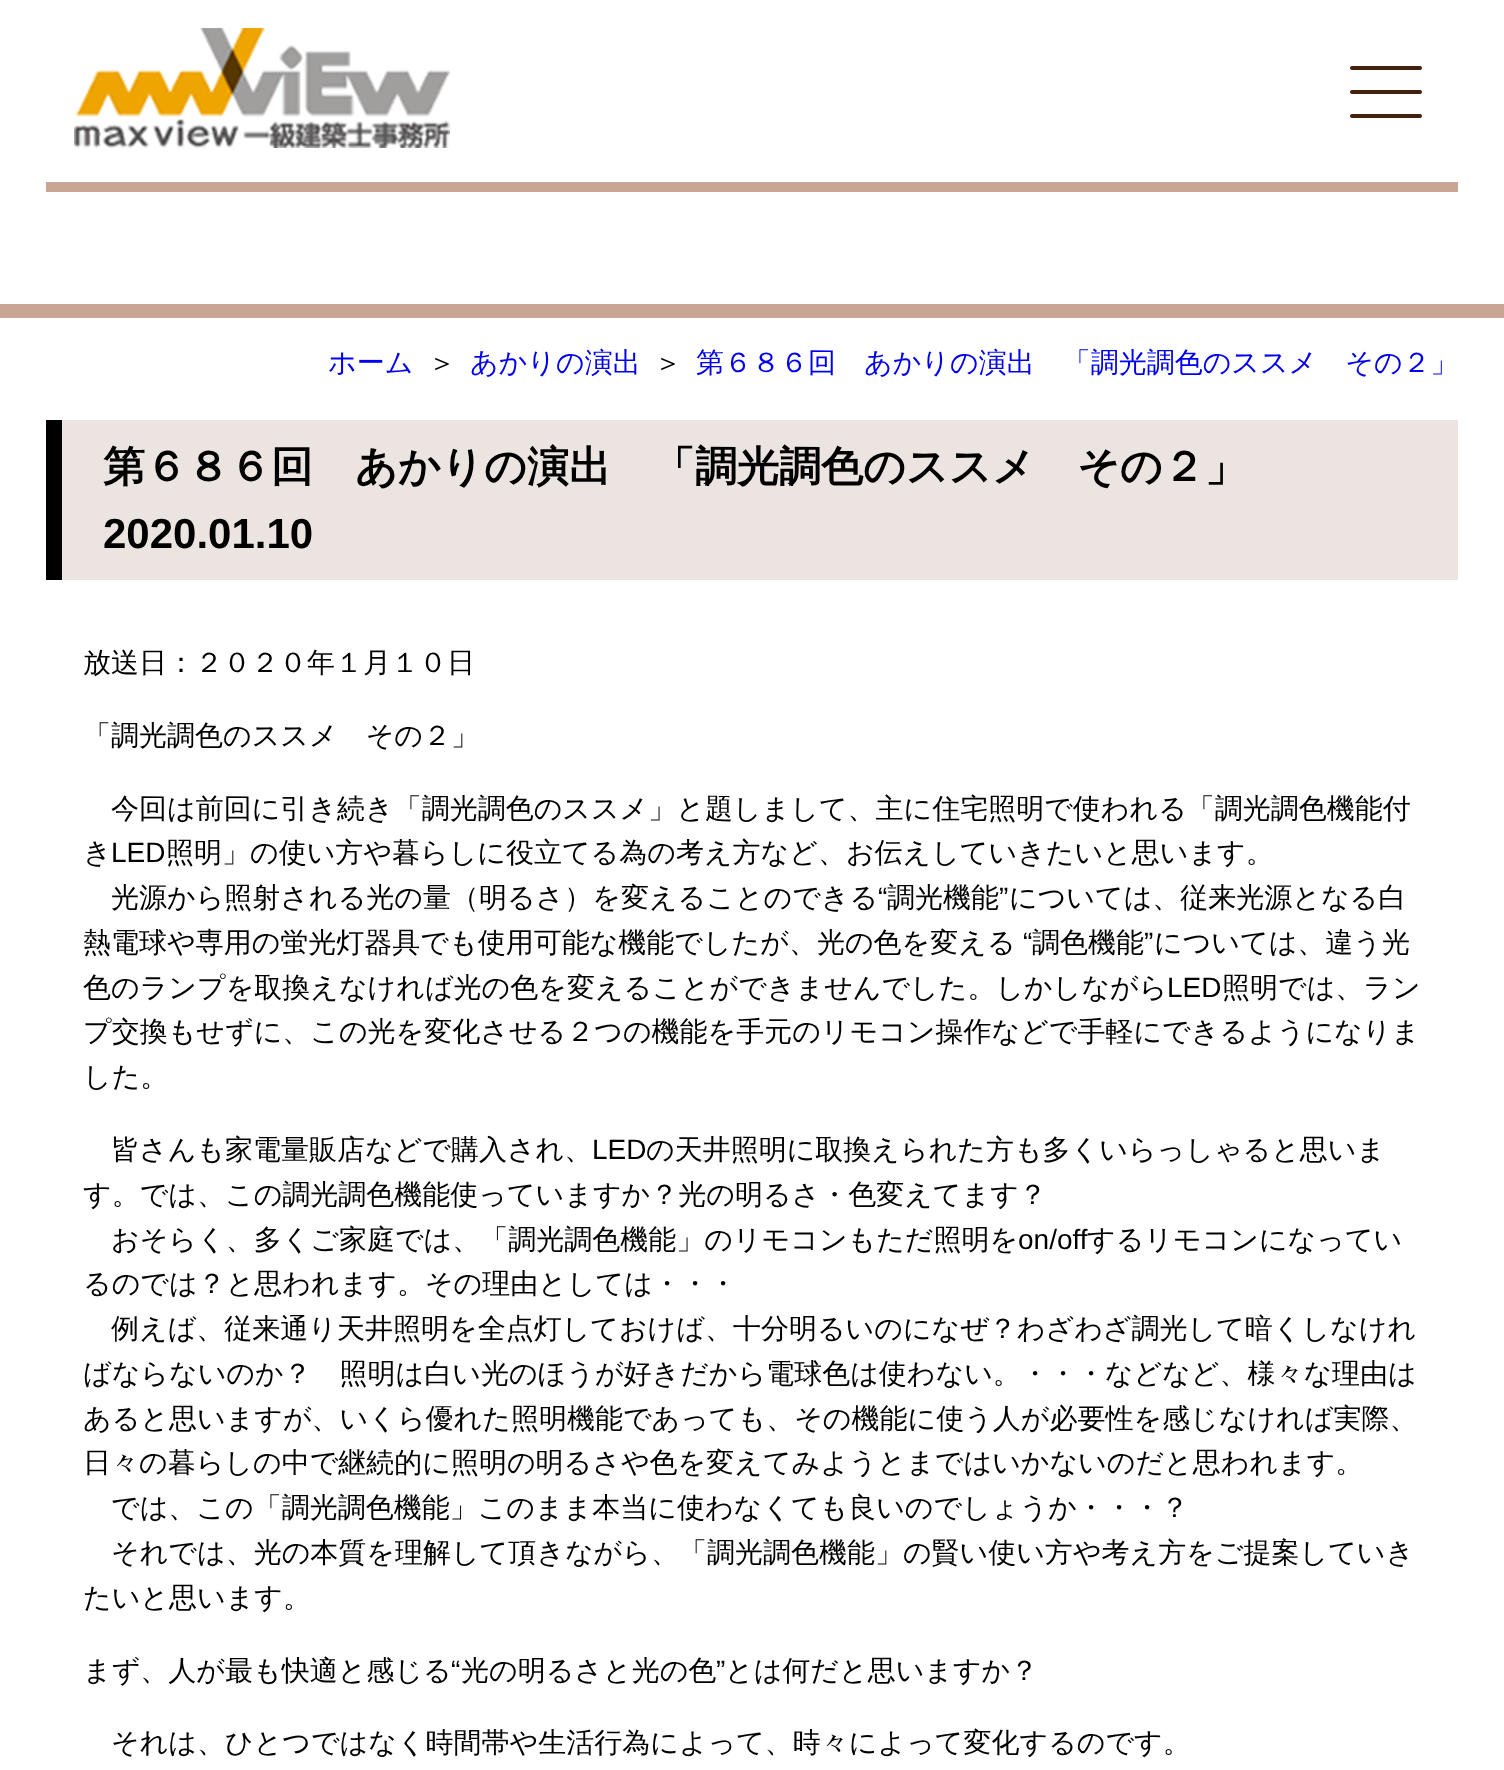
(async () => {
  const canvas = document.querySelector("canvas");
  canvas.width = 1504;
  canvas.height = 1770;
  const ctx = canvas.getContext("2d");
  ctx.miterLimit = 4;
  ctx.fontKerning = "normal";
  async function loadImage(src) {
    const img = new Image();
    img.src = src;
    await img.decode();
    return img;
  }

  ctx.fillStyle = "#ffffff";
  ctx.fillRect(0, 0, 1504, 1770);
  ctx.fillStyle = "#c9a694";
  ctx.fillRect(0, 304, 1504, 14);
  ctx.fillStyle = "#c9a693";
  ctx.fillRect(46, 182, 1412, 10);
  ctx.drawImage(await loadImage("img/1.png"), 74, 28, 376, 120);
  ctx.fillStyle = "#41210c";
  ctx.beginPath();
  ctx.roundRect(1350, 66, 72, 4, 2);
  ctx.fill();
  ctx.beginPath();
  ctx.roundRect(1350, 90, 72, 4, 2);
  ctx.fill();
  ctx.beginPath();
  ctx.roundRect(1350, 114, 72, 4, 2);
  ctx.fill();
  ctx.fillStyle = "#ece4e1";
  ctx.fillRect(62, 420, 1396, 160);
  ctx.fillStyle = "#000000";
  ctx.fillRect(46, 420, 16, 160);
  ctx.font = "500 28px WenQuanYi Zen Hei";
  ctx.fillStyle = "#0000ee";
  ctx.fillText("ホーム", 328, 372);
  ctx.fillStyle = "#000000";
  ctx.fillText("＞", 428, 372);
  ctx.fillStyle = "#0000ee";
  ctx.fillText("あかりの演出", 470, 372);
  ctx.fillStyle = "#000000";
  ctx.fillText("＞", 654, 372);
  ctx.fillStyle = "#0000ee";
  ctx.fillText("第６８６回　あかりの演出　「調光調色のススメ　その２」", 696, 372);
  ctx.font = "bold 42px WenQuanYi Zen Hei";
  ctx.fillStyle = "#000000";
  ctx.fillText("第６８６回　あかりの演出　「調光調色のススメ　その２」", 103, 481);
  ctx.font = "bold 42px Liberation Sans";
  ctx.fillText("2020.01.10", 103, 548);
  ctx.font = "500 28px WenQuanYi Zen Hei";
  for (const [text, x, y] of [
    ["放送日：２０２０年１月１０日", 83, 672],
    ["「調光調色のススメ　その２」", 83, 745],
    ["今回は前回に引き続き「調光調色のススメ」と題しまして、主に住宅照明で使われる「調光調色機能付", 111, 818],
    ["き", 83, 862],
  ]) {
    ctx.fillText(text, x, y);
  }
  ctx.font = "28px Liberation Sans";
  ctx.fillText("LED", 111, 862);
  ctx.font = "500 28px WenQuanYi Zen Hei";
  ctx.fillText("照明」の使い方や暮らしに役立てる為の考え方など、お伝えしていきたいと思います。", 166, 862);
  ctx.fillText("光源から照射される光の量（明るさ）を変えることのできる", 111, 907);
  ctx.font = "28px Liberation Sans";
  ctx.fillText("“", 878, 907);
  ctx.font = "500 28px WenQuanYi Zen Hei";
  ctx.fillText("調光機能", 887, 907);
  ctx.font = "28px Liberation Sans";
  ctx.fillText("”", 999, 907);
  ctx.font = "500 28px WenQuanYi Zen Hei";
  ctx.fillText("については、従来光源となる白", 1009, 907);
  ctx.fillText("熱電球や専用の蛍光灯器具でも使用可能な機能でしたが、光の色を変える", 83, 952);
  ctx.font = "28px Liberation Sans";
  ctx.fillText("“", 1023, 952);
  ctx.font = "500 28px WenQuanYi Zen Hei";
  ctx.fillText("調色機能", 1032, 952);
  ctx.font = "28px Liberation Sans";
  ctx.fillText("”", 1144, 952);
  ctx.font = "500 28px WenQuanYi Zen Hei";
  ctx.fillText("については、違う光", 1154, 952);
  ctx.fillText("色のランプを取換えなければ光の色を変えることができませんでした。しかしながら", 83, 997);
  ctx.font = "28px Liberation Sans";
  ctx.fillText("LED", 1167, 997);
  ctx.font = "500 28px WenQuanYi Zen Hei";
  for (const [text, x, y] of [
    ["照明では、ラン", 1222, 997],
    ["プ交換もせずに、この光を変化させる２つの機能を手元のリモコン操作などで手軽にできるようになりま", 83, 1041],
    ["した。", 83, 1086],
    ["皆さんも家電量販店などで購入され、", 111, 1159],
  ]) {
    ctx.fillText(text, x, y);
  }
  ctx.font = "28px Liberation Sans";
  ctx.fillText("LED", 592, 1159);
  ctx.font = "500 28px WenQuanYi Zen Hei";
  for (const [text, x, y] of [
    ["の天井照明に取換えられた方も多くいらっしゃると思いま", 646, 1159],
    ["す。では、この調光調色機能使っていますか？光の明るさ・色変えてます？", 83, 1204],
    ["おそらく、多くご家庭では、「調光調色機能」のリモコンもただ照明を", 111, 1249],
  ]) {
    ctx.fillText(text, x, y);
  }
  ctx.font = "28px Liberation Sans";
  ctx.fillText("on/off", 1018, 1249);
  ctx.font = "500 28px WenQuanYi Zen Hei";
  for (const [text, x, y] of [
    ["するリモコンになってい", 1087, 1249],
    ["るのでは？と思われます。その理由としては・・・", 83, 1293],
    ["例えば、従来通り天井照明を全点灯しておけば、十分明るいのになぜ？わざわざ調光して暗くしなけれ", 111, 1338],
    ["ばならないのか？　照明は白い光のほうが好きだから電球色は使わない。・・・などなど、様々な理由は", 83, 1383],
    ["あると思いますが、いくら優れた照明機能であっても、その機能に使う人が必要性を感じなければ実際、", 83, 1428],
    ["日々の暮らしの中で継続的に照明の明るさや色を変えてみようとまではいかないのだと思われます。", 83, 1472],
    ["では、この「調光調色機能」このまま本当に使わなくても良いのでしょうか・・・？", 111, 1517],
    ["それでは、光の本質を理解して頂きながら、「調光調色機能」の賢い使い方や考え方をご提案していき", 111, 1562],
    ["たいと思います。", 83, 1607],
    ["まず、人が最も快適と感じる", 83, 1680],
  ]) {
    ctx.fillText(text, x, y);
  }
  ctx.font = "28px Liberation Sans";
  ctx.fillText("“", 451, 1680);
  ctx.font = "500 28px WenQuanYi Zen Hei";
  ctx.fillText("光の明るさと光の色", 461, 1680);
  ctx.font = "28px Liberation Sans";
  ctx.fillText("”", 716, 1680);
  ctx.font = "500 28px WenQuanYi Zen Hei";
  ctx.fillText("とは何だと思いますか？", 725, 1680);
  ctx.fillText("それは、ひとつではなく時間帯や生活行為によって、時々によって変化するのです。", 111, 1752);
})();
